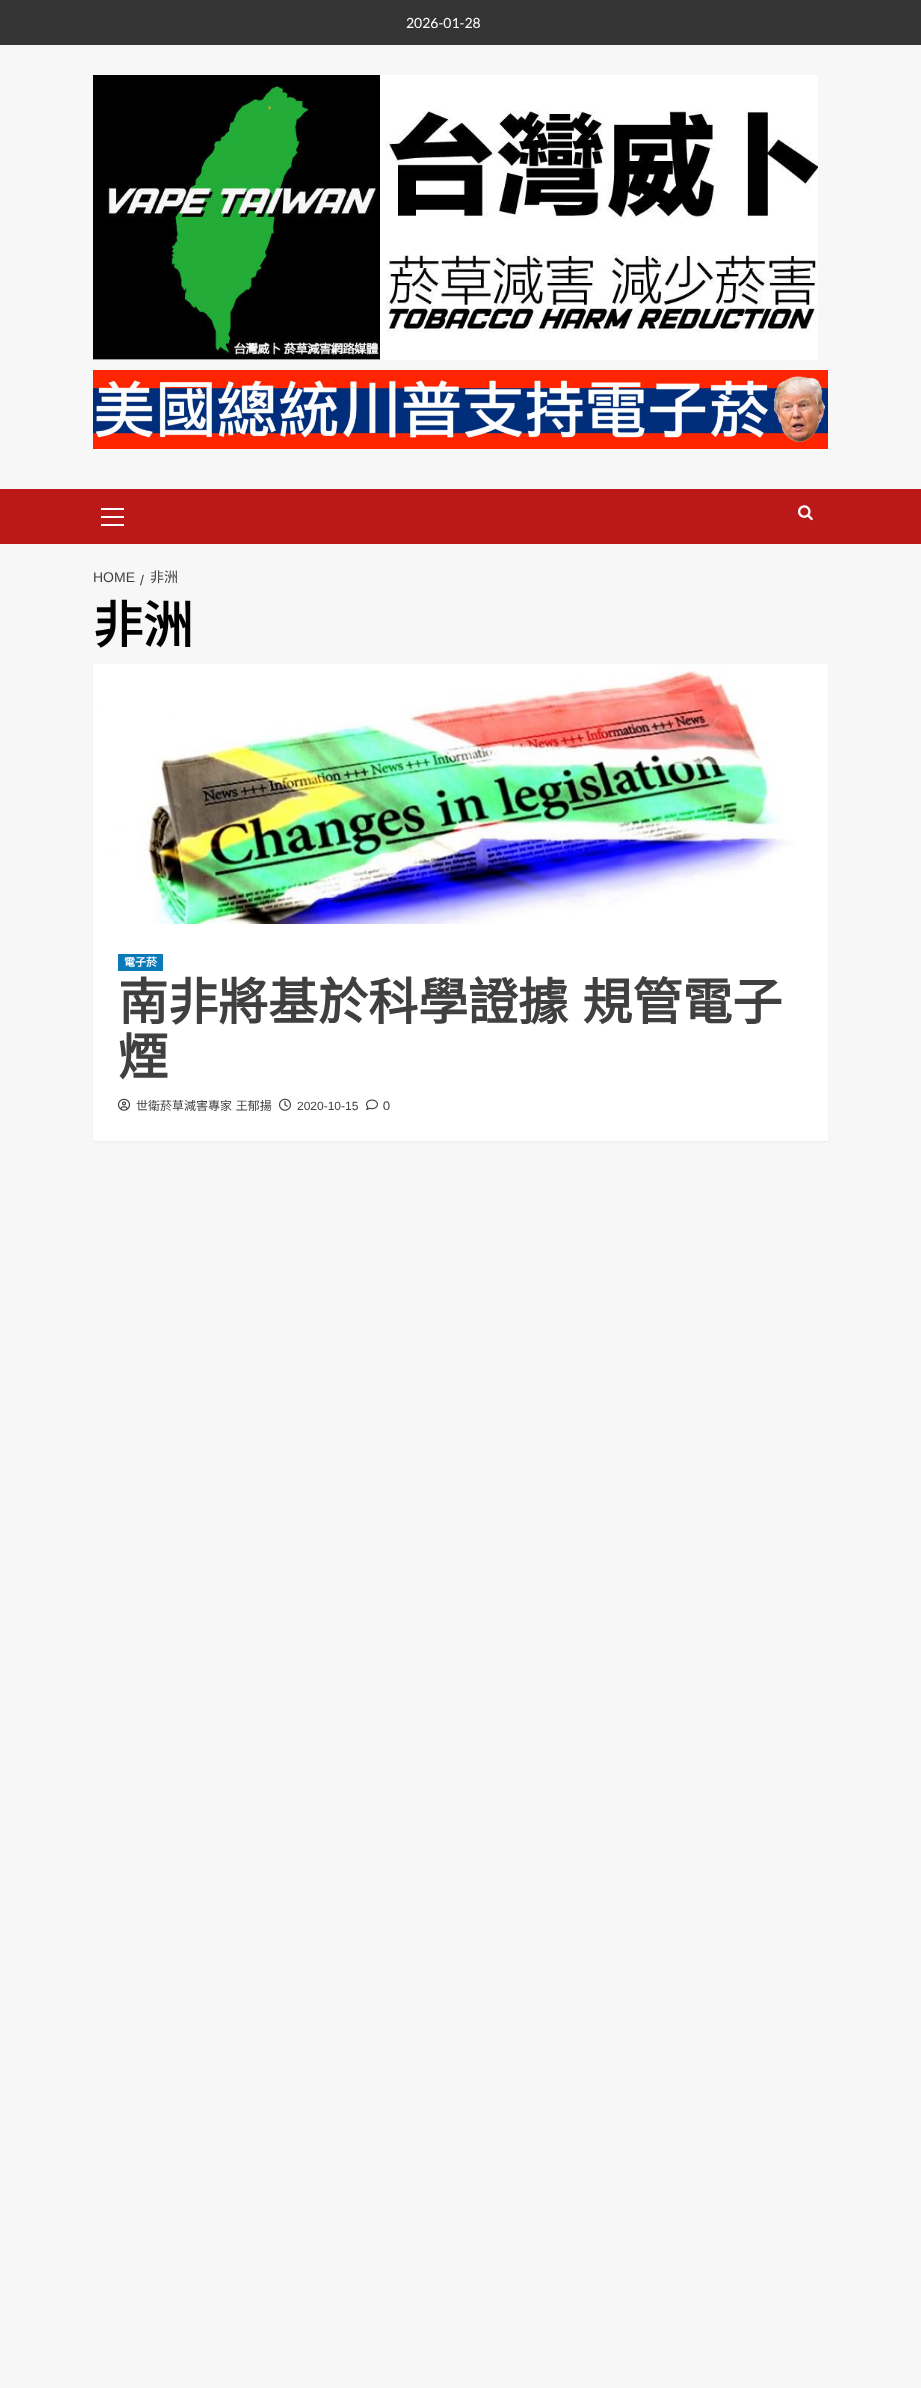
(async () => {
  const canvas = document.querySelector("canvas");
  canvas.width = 921;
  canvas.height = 2388;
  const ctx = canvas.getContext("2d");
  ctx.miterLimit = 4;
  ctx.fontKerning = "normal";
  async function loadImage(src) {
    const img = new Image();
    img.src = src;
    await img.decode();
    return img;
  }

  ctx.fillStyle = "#f7f7f7";
  ctx.fillRect(0, 0, 921, 2388);
  ctx.fillStyle = "#353535";
  ctx.fillRect(0, 0, 921, 45);
  ctx.drawImage(await loadImage("img/1.png"), 93, 75, 725, 285);
  ctx.drawImage(await loadImage("img/2.png"), 93, 370, 735, 79);
  for (const [x, y, w, h, color] of [
    [0, 489, 921, 55, "#bb1919"],
    [101, 516, 23, 2, "#ffffff"],
    [101, 508, 23, 2, "#ffffff"],
    [101, 524, 23, 2, "#ffffff"],
  ]) {
    ctx.fillStyle = color;
    ctx.fillRect(x, y, w, h);
  }
  ctx.drawImage(await loadImage("img/3.png"), 798, 505, 15, 16);
  ctx.fillStyle = "rgba(0, 0, 0, 0.05)";
  ctx.filter = "blur(1px)";
  ctx.beginPath();
  ctx.rect(93, 665, 735, 477);
  ctx.fill();
  ctx.filter = "none";
  ctx.drawImage(await loadImage("img/4.png"), 93, 664, 735, 260);
  ctx.fillStyle = "#ffffff";
  ctx.fillRect(93, 924, 735, 217);
  ctx.fillStyle = "#0a7bb8";
  ctx.fillRect(118, 954, 45, 17);
  ctx.drawImage(await loadImage("img/5.png"), 118, 1098, 12, 13);
  ctx.drawImage(await loadImage("img/6.png"), 279, 1098, 12, 13);
  ctx.drawImage(await loadImage("img/7.png"), 366, 1099, 12, 11);
  ctx.font = "14px Lato";
  ctx.fillStyle = "#ffffff";
  ctx.fillText("2026-01-28", 406, 28);
  ctx.font = "14px Liberation Sans";
  ctx.fillStyle = "#404040";
  ctx.fillText("HOME", 93, 582);
  ctx.fillText("/", 140, 585);
  ctx.font = "14px Noto Sans CJK TC";
  ctx.fillText("非洲", 150, 582);
  ctx.font = "bold 50px Noto Sans CJK TC";
  ctx.fillStyle = "#000000";
  ctx.fillText("非洲", 93, 643);
  ctx.font = "bold 11px Noto Sans CJK TC";
  ctx.fillStyle = "#ffffff";
  ctx.fillText("電子菸", 124, 966);
  ctx.wordSpacing = "3px";
  ctx.font = "bold 50px Noto Sans CJK TC";
  ctx.fillStyle = "#404040";
  ctx.fillText("南非將基於科學證據 規管電子", 118, 1020);
  ctx.wordSpacing = "0px";
  ctx.fillText("煙", 118, 1075);
  ctx.wordSpacing = "1px";
  ctx.font = "12px Noto Sans CJK TC";
  ctx.fillText("世衛菸草減害專家 王郁揚", 136, 1110);
  ctx.wordSpacing = "0px";
  ctx.font = "12px Liberation Sans";
  ctx.fillText("2020-10-15", 297, 1110);
  ctx.font = "12px Lato";
  ctx.fillText("0", 383, 1110);
})();
